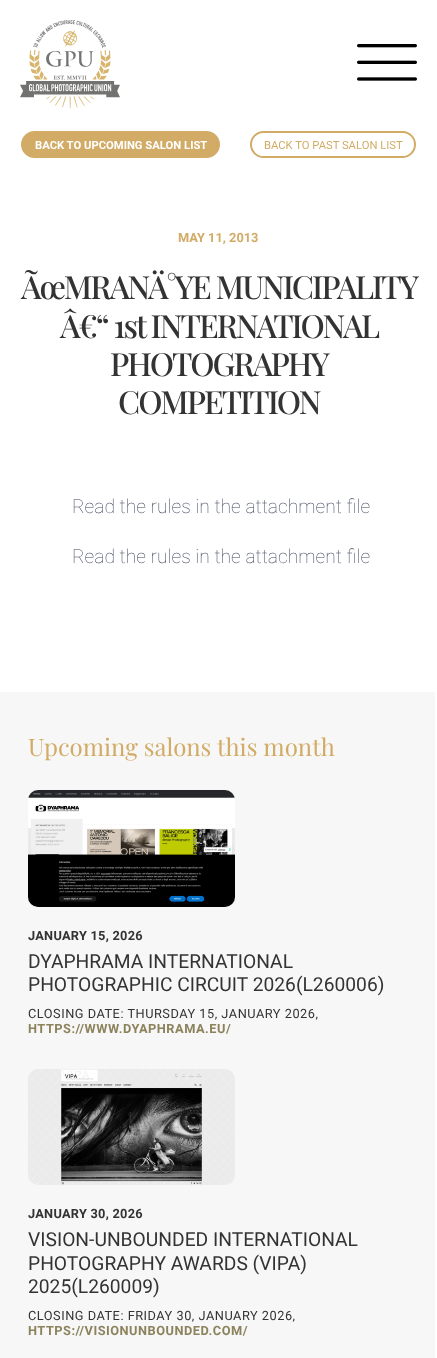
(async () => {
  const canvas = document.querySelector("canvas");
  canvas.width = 437;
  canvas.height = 1358;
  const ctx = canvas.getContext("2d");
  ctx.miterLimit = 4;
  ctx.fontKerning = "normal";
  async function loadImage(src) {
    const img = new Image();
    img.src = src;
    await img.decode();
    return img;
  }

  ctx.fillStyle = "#ffffff";
  ctx.fillRect(0, 0, 437, 1358);
  ctx.drawImage(await loadImage("img/1.png"), 20, 20, 100, 88);
  ctx.drawImage(await loadImage("img/2.png"), 357, 44, 60, 37);
  ctx.fillStyle = "#d2ac67";
  ctx.beginPath();
  ctx.roundRect(22, 132, 197, 25, 12.5);
  ctx.fill();
  ctx.strokeStyle = "#d2ac67";
  ctx.lineWidth = 2;
  ctx.stroke();
  ctx.beginPath();
  ctx.roundRect(251, 132, 164, 25, 12.5);
  ctx.stroke();
  ctx.fillStyle = "#f7f7f7";
  ctx.fillRect(0, 692, 435, 666);
  ctx.drawImage(await loadImage("img/3.png"), 28, 790, 207, 117);
  ctx.drawImage(await loadImage("img/4.png"), 28, 1069, 207, 116);
  ctx.font = "bold 11.25px Roboto";
  ctx.fillStyle = "#ffffff";
  ctx.fillText("BACK TO UPCOMING SALON LIST", 35, 149);
  ctx.font = "11.25px Roboto";
  ctx.fillStyle = "#d2ac67";
  ctx.fillText("BACK TO PAST SALON LIST", 264, 149);
  ctx.font = "bold 12.8px Roboto";
  ctx.fillText("MAY 11, 2013", 178, 242);
  ctx.letterSpacing = "-2px";
  ctx.font = "500 32px Playfair Display";
  ctx.fillStyle = "#333333";
  for (const [text, x, y] of [
    ["ÃœMRANÄ°YE MUNICIPALITY", 21, 299],
    ["Â€“ 1st INTERNATIONAL", 60, 338],
    ["PHOTOGRAPHY", 110, 376],
    ["COMPETITION", 118, 414],
  ]) {
    ctx.fillText(text, x, y);
  }
  ctx.letterSpacing = "0px";
  ctx.font = "100 19.25px Roboto";
  ctx.fillStyle = "#3d4459";
  ctx.fillText("Read the rules in the attachment file", 72, 513);
  ctx.fillText("Read the rules in the attachment file", 72, 563);
  ctx.font = "24px Playfair Display";
  ctx.fillStyle = "#d2ac67";
  ctx.fillText("Upcoming salons this month", 28, 756);
  ctx.letterSpacing = "0.25px";
  ctx.font = "bold 12.8px Roboto";
  ctx.fillStyle = "#333333";
  ctx.fillText("JANUARY 15, 2026", 28, 940);
  ctx.letterSpacing = "0px";
  ctx.font = "19.25px Roboto";
  ctx.fillText("DYAPHRAMA INTERNATIONAL", 28, 968);
  ctx.fillText("PHOTOGRAPHIC CIRCUIT 2026(L260006)", 28, 991);
  ctx.letterSpacing = "0.5px";
  ctx.font = "12.8px Roboto";
  ctx.fillText("CLOSING DATE: THURSDAY 15, JANUARY 2026,", 28, 1018);
  ctx.font = "bold 12.8px Roboto";
  ctx.fillStyle = "#8c835d";
  ctx.fillText("HTTPS://WWW.DYAPHRAMA.EU/", 28, 1033);
  ctx.letterSpacing = "0.25px";
  ctx.fillStyle = "#333333";
  ctx.fillText("JANUARY 30, 2026", 28, 1218);
  ctx.letterSpacing = "0px";
  ctx.font = "19.25px Roboto";
  for (const [text, x, y] of [
    ["VISION-UNBOUNDED INTERNATIONAL", 28, 1246],
    ["PHOTOGRAPHY AWARDS (VIPA)", 28, 1270],
    ["2025(L260009)", 28, 1293],
  ]) {
    ctx.fillText(text, x, y);
  }
  ctx.letterSpacing = "0.5px";
  ctx.font = "12.8px Roboto";
  ctx.fillText("CLOSING DATE: FRIDAY 30, JANUARY 2026,", 28, 1320);
  ctx.font = "bold 12.8px Roboto";
  ctx.fillStyle = "#8c835d";
  ctx.fillText("HTTPS://VISIONUNBOUNDED.COM/", 28, 1335);
})();
